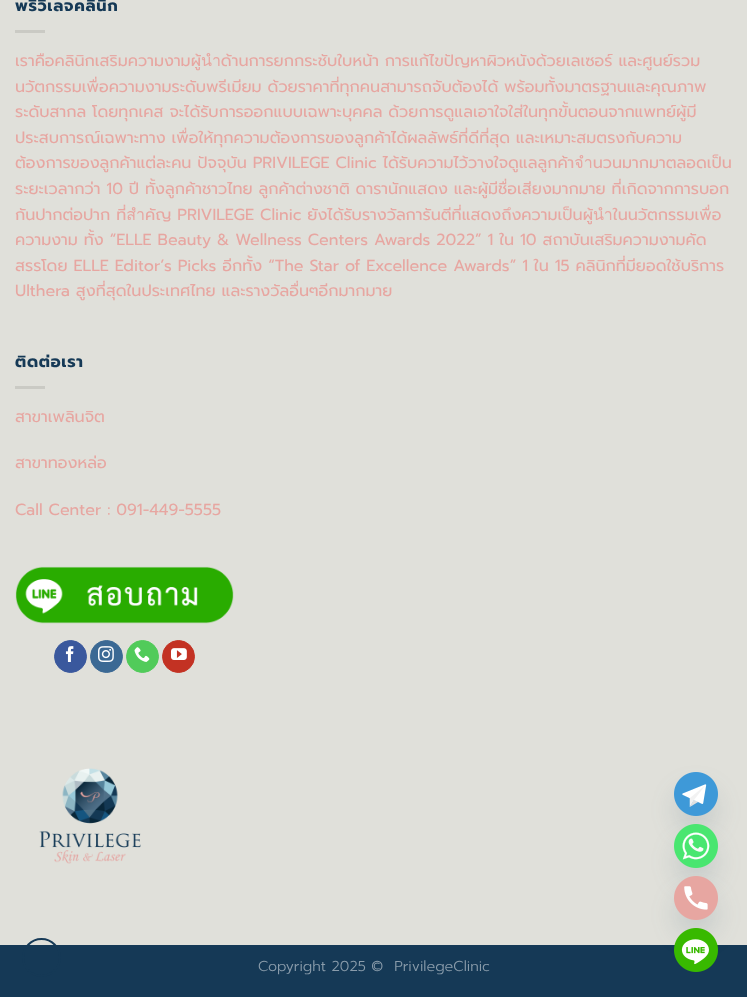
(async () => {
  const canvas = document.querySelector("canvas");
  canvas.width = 747;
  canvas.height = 997;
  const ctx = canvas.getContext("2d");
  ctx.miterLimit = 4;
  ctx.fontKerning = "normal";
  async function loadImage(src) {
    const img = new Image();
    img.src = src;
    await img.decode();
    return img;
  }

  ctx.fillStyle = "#153956";
  ctx.fillRect(0, 0, 747, 997);
  for (const [x, y, w, h, color] of [
    [0, 0, 747, 945, "#e0e0da"],
    [15, 30, 30, 3, "#cacac4"],
    [15, 386, 30, 3, "#cacac4"],
  ]) {
    ctx.fillStyle = color;
    ctx.fillRect(x, y, w, h);
  }
  ctx.drawImage(await loadImage("img/1.png"), 15, 566, 219, 58);
  ctx.fillStyle = "#3a589d";
  ctx.beginPath();
  ctx.arc(70.5, 656.5, 16, 0, Math.PI * 2);
  ctx.fill();
  ctx.strokeStyle = "#3a589d";
  ctx.stroke();
  ctx.drawImage(await loadImage("img/2.png"), 65, 646, 9, 16);
  ctx.fillStyle = "#3b6994";
  ctx.beginPath();
  ctx.arc(106.5, 656.5, 16, 0, Math.PI * 2);
  ctx.fill();
  ctx.strokeStyle = "#3b6994";
  ctx.stroke();
  ctx.drawImage(await loadImage("img/3.png"), 98, 646, 16, 16);
  ctx.fillStyle = "#51cb5a";
  ctx.beginPath();
  ctx.arc(142.5, 656.5, 16, 0, Math.PI * 2);
  ctx.fill();
  ctx.strokeStyle = "#51cb5a";
  ctx.stroke();
  ctx.drawImage(await loadImage("img/4.png"), 134, 647, 16, 15);
  ctx.fillStyle = "#c33223";
  ctx.beginPath();
  ctx.arc(178.5, 656.5, 16, 0, Math.PI * 2);
  ctx.fill();
  ctx.strokeStyle = "#c33223";
  ctx.stroke();
  ctx.drawImage(await loadImage("img/5.png"), 171, 648, 16, 12);
  ctx.drawImage(await loadImage("img/6.png"), 39, 768, 102, 96);
  ctx.beginPath();
  ctx.arc(41.5, 957.5, 18.5, 0, Math.PI * 2);
  ctx.strokeStyle = "#153956";
  ctx.lineWidth = 2;
  ctx.stroke();
  ctx.fillStyle = "rgba(73, 104, 126, 0.16)";
  ctx.filter = "blur(12px)";
  ctx.beginPath();
  ctx.roundRect(674, 788, 44, 44, 22);
  ctx.fill();
  ctx.filter = "none";
  ctx.drawImage(await loadImage("img/7.png"), 674, 772, 44, 44);
  ctx.filter = "blur(12px)";
  ctx.beginPath();
  ctx.roundRect(674, 840, 44, 44, 22);
  ctx.fill();
  ctx.filter = "none";
  ctx.drawImage(await loadImage("img/8.png"), 674, 824, 44, 44);
  ctx.filter = "blur(12px)";
  ctx.beginPath();
  ctx.roundRect(674, 892, 44, 44, 22);
  ctx.fill();
  ctx.filter = "none";
  ctx.drawImage(await loadImage("img/9.png"), 674, 876, 44, 44);
  ctx.drawImage(await loadImage("img/10.png"), 674, 928, 44, 44);
  ctx.letterSpacing = "0.75px";
  ctx.font = "bold 16px Prompt";
  ctx.fillStyle = "#153956";
  ctx.fillText("พริวิเลจคลินิก", 15, 11);
  ctx.letterSpacing = "0px";
  ctx.font = "16px Prompt";
  ctx.fillStyle = "#e7a6a1";
  for (const [text, x, y] of [
    ["เราคือคลินิกเสริมความงามผู้นำด้านการยกกระชับใบหน้า การแก้ไขปัญหาผิวหนังด้วยเลเซอร์ และศูนย์รวม", 15, 66],
    ["นวัตกรรมเพื่อความงามระดับพรีเมียม ด้วยราคาที่ทุกคนสามารถจับต้องได้ พร้อมทั้งมาตรฐานและคุณภาพ", 15, 92],
    ["ระดับสากล โดยทุกเคส จะได้รับการออกแบบเฉพาะบุคคล ด้วยการดูแลเอาใจใส่ในทุกขั้นตอนจากแพทย์ผู้มี", 15, 117],
    ["ประสบการณ์เฉพาะทาง เพื่อให้ทุกความต้องการของลูกค้าได้ผลลัพธ์ที่ดีที่สุด และเหมาะสมตรงกับความ", 15, 143],
    ["ต้องการของลูกค้าแต่ละคน ปัจจุบัน PRIVILEGE Clinic ได้รับความไว้วางใจดูแลลูกค้าจำนวนมากมาตลอดเป็น", 15, 168],
    ["ระยะเวลากว่า 10 ปี ทั้งลูกค้าชาวไทย ลูกค้าต่างชาติ ดารานักแสดง และผู้มีชื่อเสียงมากมาย ที่เกิดจากการบอก", 15, 194],
    ["กันปากต่อปาก ที่สำคัญ PRIVILEGE Clinic ยังได้รับรางวัลการันตีที่แสดงถึงความเป็นผู้นำในนวัตกรรมเพื่อ", 15, 220],
    ["ความงาม ทั้ง “ELLE Beauty & Wellness Centers Awards 2022” 1 ใน 10 สถาบันเสริมความงามคัด", 15, 245],
    ["สรรโดย ELLE Editor’s Picks อีกทั้ง “The Star of Excellence Awards” 1 ใน 15 คลินิกที่มียอดใช้บริการ", 15, 271],
    ["Ulthera สูงที่สุดในประเทศไทย และรางวัลอื่นๆอีกมากมาย", 15, 296],
  ]) {
    ctx.fillText(text, x, y);
  }
  ctx.letterSpacing = "0.75px";
  ctx.font = "bold 16px Prompt";
  ctx.fillStyle = "#153956";
  ctx.fillText("ติดต่อเรา", 15, 367);
  ctx.letterSpacing = "0px";
  ctx.font = "16px Prompt";
  ctx.fillStyle = "#e7a6a1";
  for (const [text, x, y] of [
    ["สาขาเพลินจิต", 15, 422],
    ["สาขาทองหล่อ", 15, 468],
    ["Call Center : 091-449-5555", 15, 515],
  ]) {
    ctx.fillText(text, x, y);
  }
  ctx.font = "300 14.4px Prompt";
  ctx.fillStyle = "#8a9cab";
  ctx.fillText("Copyright 2025 ©  PrivilegeClinic", 258, 971);
})();
